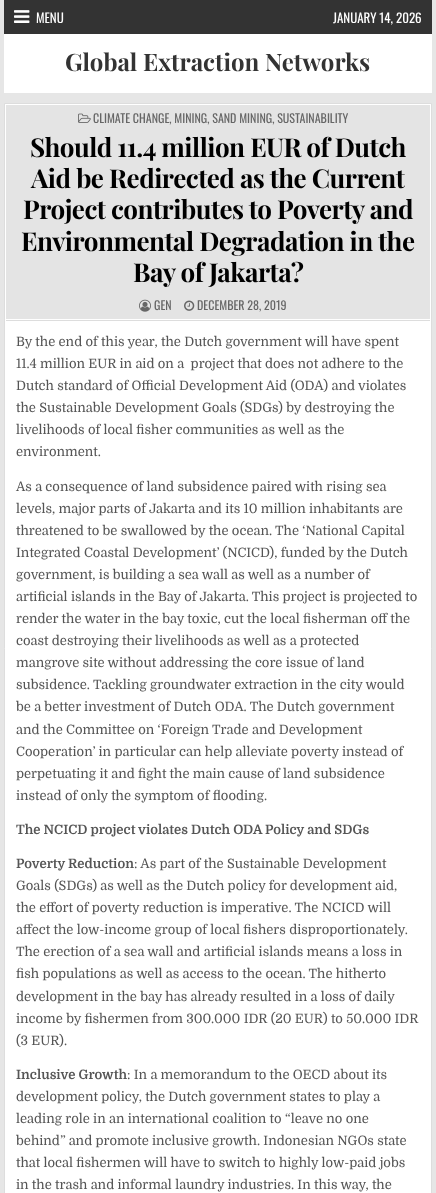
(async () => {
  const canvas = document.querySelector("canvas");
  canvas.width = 436;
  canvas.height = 1193;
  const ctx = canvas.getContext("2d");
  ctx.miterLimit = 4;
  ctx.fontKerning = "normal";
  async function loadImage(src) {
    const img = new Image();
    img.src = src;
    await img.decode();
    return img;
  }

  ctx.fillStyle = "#e6e6e6";
  ctx.fillRect(0, 0, 436, 1193);
  ctx.fillStyle = "#333333";
  ctx.fillRect(4, 0, 428, 34);
  ctx.drawImage(await loadImage("img/1.png"), 14, 10, 16, 13);
  ctx.fillStyle = "#ffffff";
  ctx.fillRect(4, 34, 428, 59);
  ctx.beginPath();
  ctx.rect(4.5, 103.5, 427, 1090);
  ctx.fill();
  ctx.strokeStyle = "#dddddd";
  ctx.stroke();
  ctx.fillStyle = "#e4e4e4";
  ctx.fillRect(6, 105, 424, 214);
  ctx.fillStyle = "#dddddd";
  ctx.fillRect(6, 320, 424, 1);
  ctx.drawImage(await loadImage("img/2.png"), 78, 113, 13, 10);
  ctx.drawImage(await loadImage("img/3.png"), 139, 299, 12, 13);
  ctx.drawImage(await loadImage("img/4.png"), 184, 300, 11, 11);
  ctx.font = "13px Oswald";
  ctx.fillStyle = "#ffffff";
  ctx.fillText("MENU", 36, 23);
  ctx.fillText("JANUARY 14, 2026", 333, 23);
  ctx.font = "bold 24px Playfair Display";
  ctx.fillStyle = "#333333";
  ctx.fillText("Global Extraction Networks", 65, 71);
  ctx.font = "12px Oswald";
  ctx.fillStyle = "#666666";
  ctx.fillText("CLIMATE CHANGE, MINING, SAND MINING, SUSTAINABILITY", 93, 123);
  ctx.letterSpacing = "-0.5px";
  ctx.font = "bold 26px Playfair Display";
  ctx.fillStyle = "#000000";
  for (const [text, x, y] of [
    ["Should 11.4 million EUR of Dutch", 30, 157],
    ["Aid be Redirected as the Current", 31, 188],
    ["Project contributes to Poverty and", 23, 219],
    ["Environmental Degradation in the", 21, 251],
    ["Bay of Jakarta?", 133, 282],
  ]) {
    ctx.fillText(text, x, y);
  }
  ctx.letterSpacing = "0px";
  ctx.font = "12px Oswald";
  ctx.fillStyle = "#666666";
  ctx.fillText("GEN", 154, 310);
  ctx.fillText("DECEMBER 28, 2019", 197, 310);
  ctx.font = "13px Domine";
  ctx.fillStyle = "#555555";
  for (const [text, x, y] of [
    ["By the end of this year, the Dutch government will have spent", 16, 346],
    ["11.4 million EUR in aid on a  project that does not adhere to the", 16, 368],
    ["Dutch standard of Official Development Aid (ODA) and violates", 16, 390],
    ["the Sustainable Development Goals (SDGs) by destroying the", 16, 412],
    ["livelihoods of local fisher communities as well as the", 16, 434],
    ["environment.", 16, 456],
    ["As a consequence of land subsidence paired with rising sea", 16, 491],
    ["levels, major parts of Jakarta and its 10 million inhabitants are", 16, 513],
    ["threatened to be swallowed by the ocean. The ‘National Capital", 16, 535],
    ["Integrated Coastal Development’ (NCICD), funded by the Dutch", 16, 557],
    ["government, is building a sea wall as well as a number of", 16, 579],
    ["artificial islands in the Bay of Jakarta. This project is projected to", 16, 601],
    ["render the water in the bay toxic, cut the local fisherman off the", 16, 623],
    ["coast destroying their livelihoods as well as a protected", 16, 645],
    ["mangrove site without addressing the core issue of land", 16, 667],
    ["subsidence. Tackling groundwater extraction in the city would", 16, 689],
    ["be a better investment of Dutch ODA. The Dutch government", 16, 711],
    ["and the Committee on ‘Foreign Trade and Development", 16, 734],
    ["Cooperation’ in particular can help alleviate poverty instead of", 16, 756],
    ["perpetuating it and fight the main cause of land subsidence", 16, 778],
    ["instead of only the symptom of flooding.", 16, 800],
  ]) {
    ctx.fillText(text, x, y);
  }
  ctx.font = "bold 13px Domine";
  ctx.fillText("The NCICD project violates Dutch ODA Policy and SDGs", 16, 834);
  ctx.fillText("Poverty Reduction", 16, 868);
  ctx.font = "13px Domine";
  for (const [text, x, y] of [
    [": As part of the Sustainable Development", 134, 868],
    ["Goals (SDGs) as well as the Dutch policy for development aid,", 16, 890],
    ["the effort of poverty reduction is imperative. The NCICD will", 16, 912],
    ["affect the low-income group of local fishers disproportionately.", 16, 934],
    ["The erection of a sea wall and artificial islands means a loss in", 16, 956],
    ["fish populations as well as access to the ocean. The hitherto", 16, 978],
    ["development in the bay has already resulted in a loss of daily", 16, 1001],
    ["income by fishermen from 300.000 IDR (20 EUR) to 50.000 IDR", 16, 1023],
    ["(3 EUR).", 16, 1045],
  ]) {
    ctx.fillText(text, x, y);
  }
  ctx.font = "bold 13px Domine";
  ctx.fillText("Inclusive Growth", 16, 1079);
  ctx.font = "13px Domine";
  for (const [text, x, y] of [
    [": In a memorandum to the OECD about its", 127, 1079],
    ["development policy, the Dutch government states to play a", 16, 1101],
    ["leading role in an international coalition to “leave no one", 16, 1123],
    ["behind” and promote inclusive growth. Indonesian NGOs state", 16, 1145],
    ["that local fishermen will have to switch to highly low-paid jobs", 16, 1167],
    ["in the trash and informal laundry industries. In this way, the", 16, 1189],
  ]) {
    ctx.fillText(text, x, y);
  }
})();
